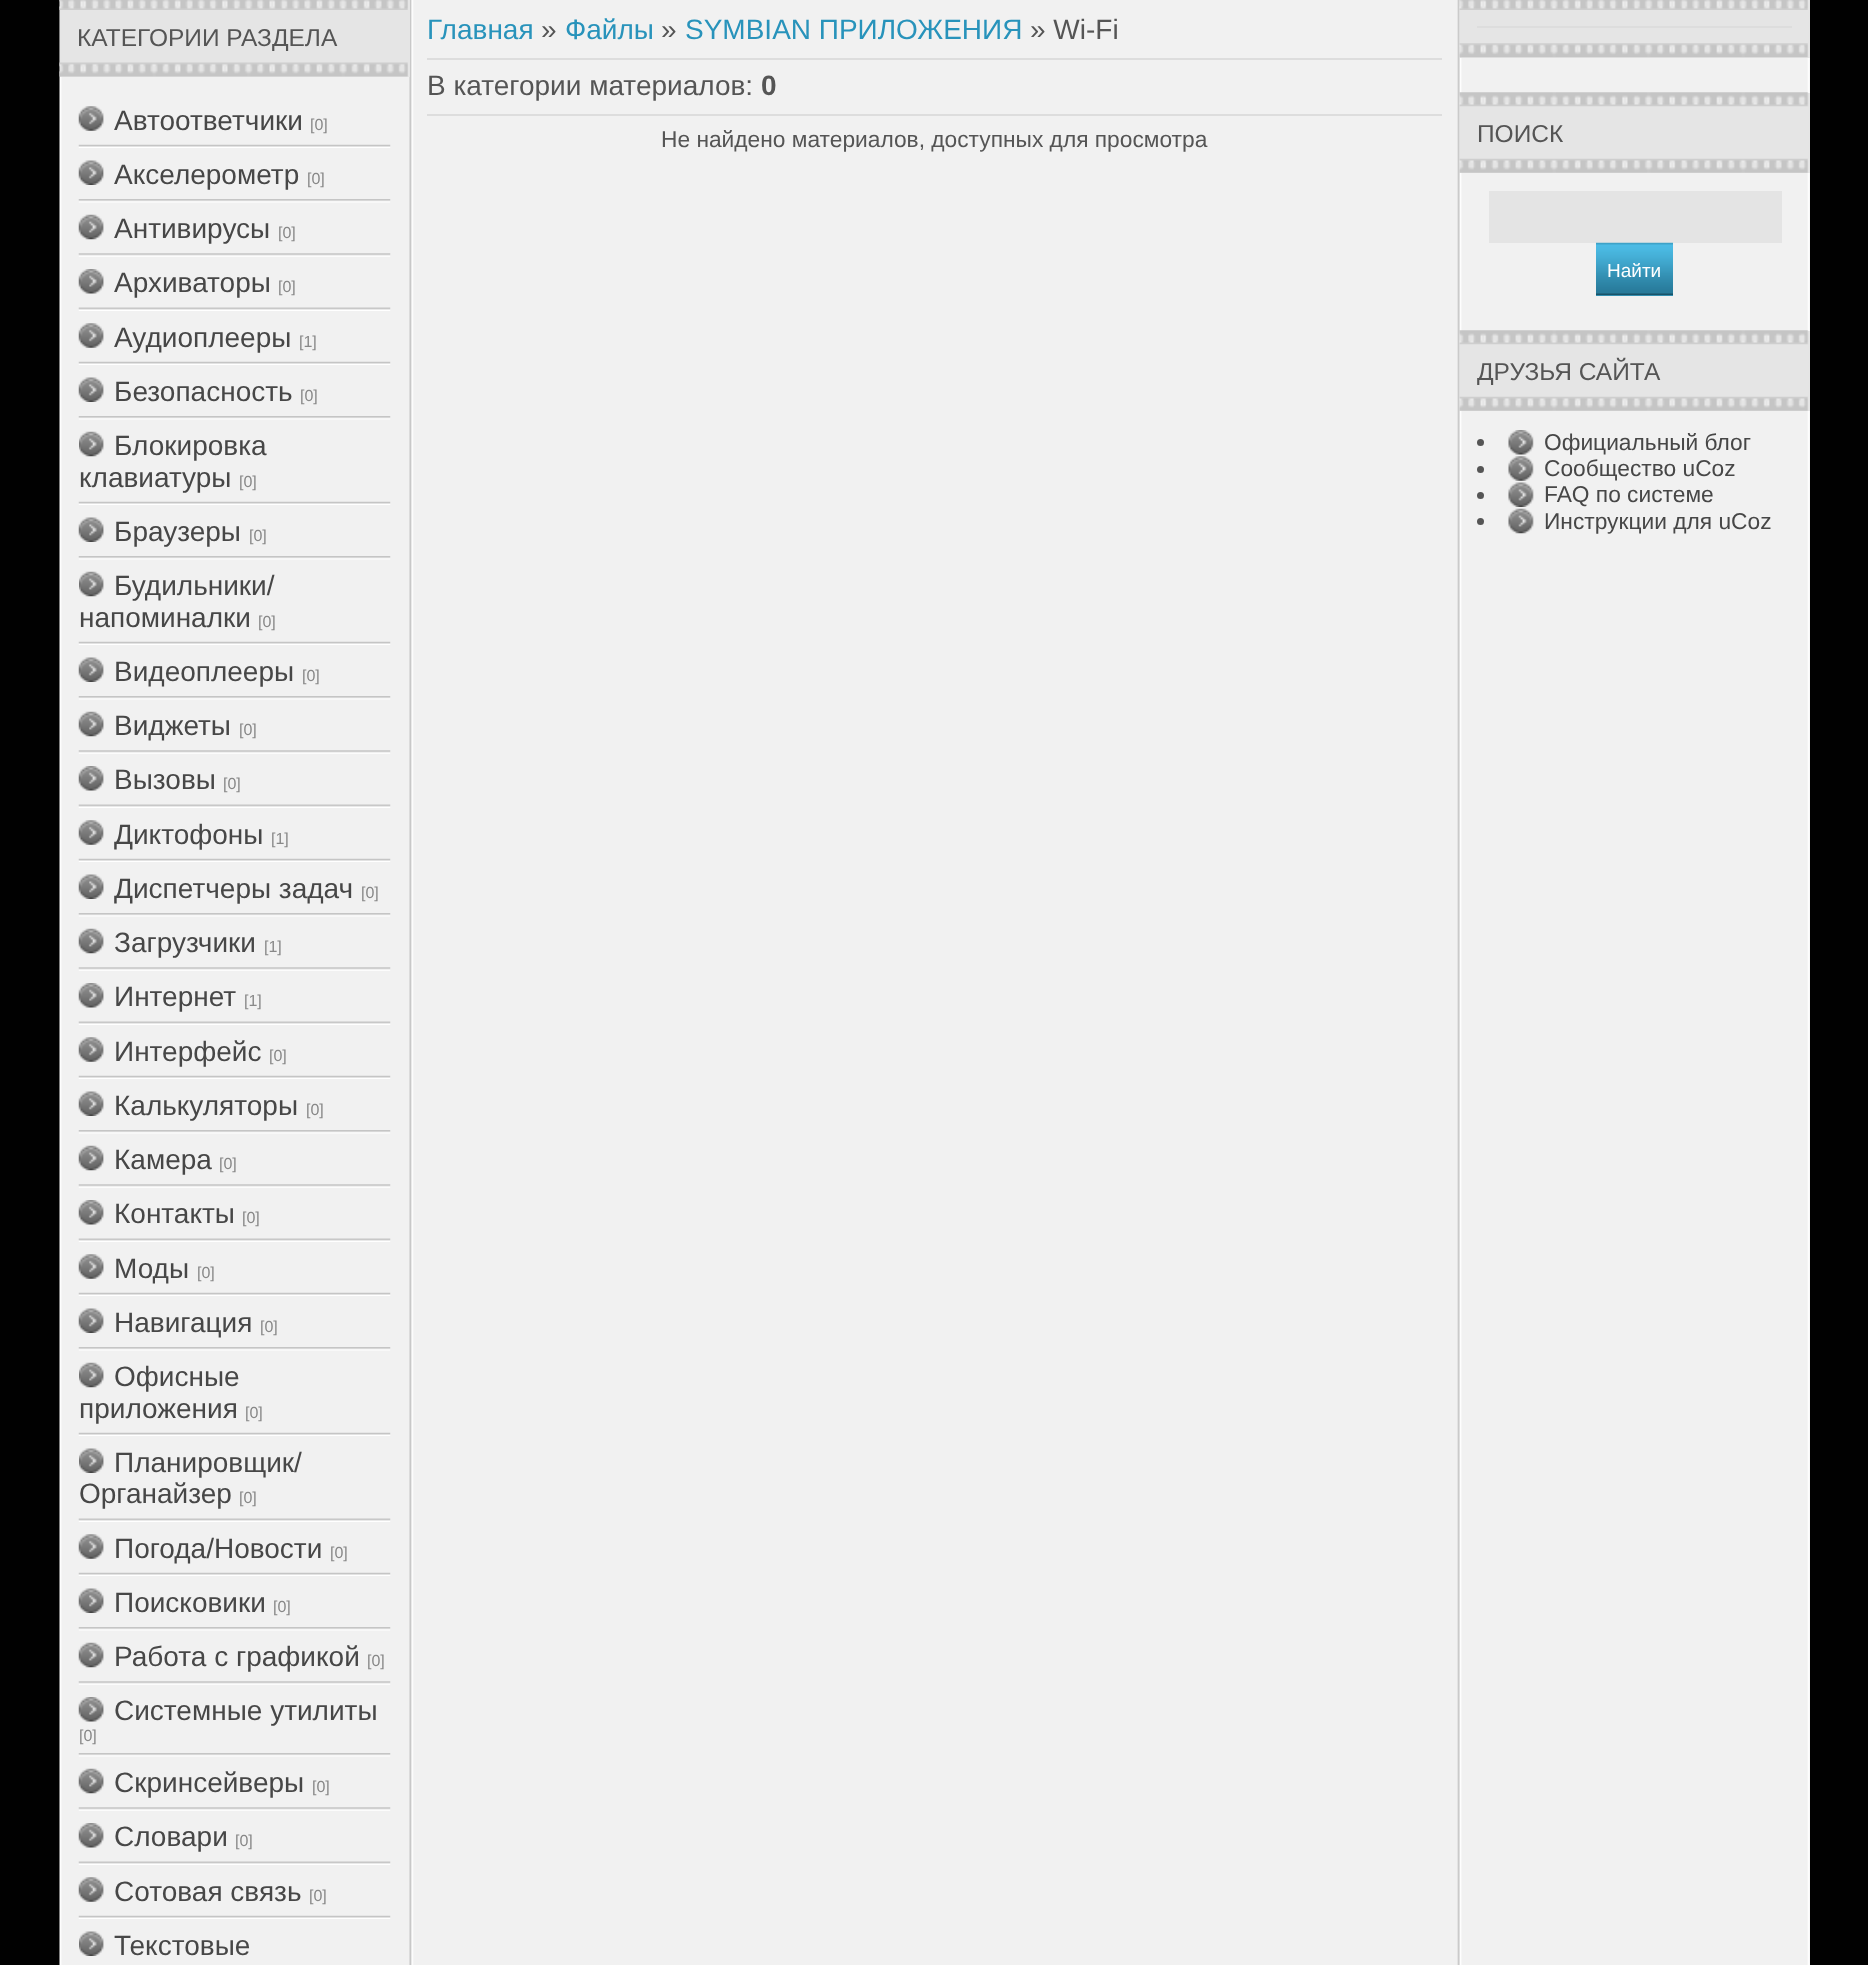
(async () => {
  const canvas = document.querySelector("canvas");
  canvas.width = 1868;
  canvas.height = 1965;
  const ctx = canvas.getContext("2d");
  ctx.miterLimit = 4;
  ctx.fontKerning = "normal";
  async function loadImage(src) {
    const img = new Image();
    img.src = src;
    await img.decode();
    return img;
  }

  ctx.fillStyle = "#010101";
  ctx.fillRect(0, 0, 1868, 1965);
  ctx.fillStyle = "#f1f1f1";
  ctx.fillRect(1809, 58, 1, 1907);
  ctx.drawImage(await loadImage("img/1.png"), 59, 0, 1751, 1965);
  ctx.fillStyle = "#e5e5e5";
  ctx.fillRect(60, 0, 350, 77);
  ctx.drawImage(await loadImage("img/2.png"), 59, 0, 349, 10);
  ctx.drawImage(await loadImage("img/3.png"), 59, 62, 349, 15);
  ctx.drawImage(await loadImage("img/4.png"), 78, 144, 313, 4);
  ctx.drawImage(await loadImage("img/5.png"), 78, 106, 26, 25);
  ctx.drawImage(await loadImage("img/6.png"), 78, 199, 313, 4);
  ctx.drawImage(await loadImage("img/7.png"), 78, 160, 26, 25);
  ctx.drawImage(await loadImage("img/8.png"), 78, 253, 313, 4);
  ctx.drawImage(await loadImage("img/9.png"), 78, 214, 26, 26);
  ctx.drawImage(await loadImage("img/10.png"), 78, 307, 313, 4);
  ctx.drawImage(await loadImage("img/11.png"), 78, 269, 26, 25);
  ctx.drawImage(await loadImage("img/4.png"), 78, 361, 313, 4);
  ctx.drawImage(await loadImage("img/12.png"), 78, 323, 26, 25);
  ctx.drawImage(await loadImage("img/6.png"), 78, 416, 313, 4);
  ctx.drawImage(await loadImage("img/13.png"), 78, 377, 26, 25);
  ctx.drawImage(await loadImage("img/4.png"), 78, 501, 313, 4);
  ctx.drawImage(await loadImage("img/14.png"), 79, 431, 25, 26);
  ctx.drawImage(await loadImage("img/6.png"), 78, 556, 313, 4);
  ctx.drawImage(await loadImage("img/15.png"), 78, 517, 26, 25);
  ctx.drawImage(await loadImage("img/4.png"), 78, 641, 313, 4);
  ctx.drawImage(await loadImage("img/16.png"), 79, 571, 25, 26);
  ctx.drawImage(await loadImage("img/6.png"), 78, 696, 313, 4);
  ctx.drawImage(await loadImage("img/17.png"), 78, 657, 26, 25);
  ctx.drawImage(await loadImage("img/8.png"), 78, 750, 313, 4);
  ctx.drawImage(await loadImage("img/18.png"), 78, 711, 26, 26);
  ctx.drawImage(await loadImage("img/10.png"), 78, 804, 313, 4);
  ctx.drawImage(await loadImage("img/19.png"), 78, 766, 26, 25);
  ctx.drawImage(await loadImage("img/4.png"), 78, 858, 313, 4);
  ctx.drawImage(await loadImage("img/20.png"), 78, 820, 26, 25);
  ctx.drawImage(await loadImage("img/6.png"), 78, 913, 313, 4);
  ctx.drawImage(await loadImage("img/21.png"), 78, 874, 26, 25);
  ctx.drawImage(await loadImage("img/8.png"), 78, 967, 313, 4);
  ctx.drawImage(await loadImage("img/22.png"), 78, 928, 26, 26);
  ctx.drawImage(await loadImage("img/10.png"), 78, 1021, 313, 4);
  ctx.drawImage(await loadImage("img/23.png"), 78, 983, 26, 25);
  ctx.drawImage(await loadImage("img/4.png"), 78, 1075, 313, 4);
  ctx.drawImage(await loadImage("img/12.png"), 78, 1037, 26, 25);
  ctx.drawImage(await loadImage("img/6.png"), 78, 1130, 313, 4);
  ctx.drawImage(await loadImage("img/24.png"), 78, 1091, 26, 25);
  ctx.drawImage(await loadImage("img/8.png"), 78, 1184, 313, 4);
  ctx.drawImage(await loadImage("img/25.png"), 78, 1145, 26, 26);
  ctx.drawImage(await loadImage("img/10.png"), 78, 1238, 313, 4);
  ctx.drawImage(await loadImage("img/26.png"), 78, 1200, 26, 25);
  ctx.drawImage(await loadImage("img/4.png"), 78, 1292, 313, 4);
  ctx.drawImage(await loadImage("img/27.png"), 78, 1254, 26, 25);
  ctx.drawImage(await loadImage("img/6.png"), 78, 1347, 313, 4);
  ctx.drawImage(await loadImage("img/13.png"), 78, 1308, 26, 25);
  ctx.drawImage(await loadImage("img/4.png"), 78, 1432, 313, 4);
  ctx.drawImage(await loadImage("img/28.png"), 79, 1362, 25, 26);
  ctx.drawImage(await loadImage("img/10.png"), 78, 1518, 313, 4);
  ctx.drawImage(await loadImage("img/29.png"), 79, 1448, 25, 25);
  ctx.drawImage(await loadImage("img/4.png"), 78, 1572, 313, 4);
  ctx.drawImage(await loadImage("img/30.png"), 78, 1534, 26, 25);
  ctx.drawImage(await loadImage("img/6.png"), 78, 1627, 313, 4);
  ctx.drawImage(await loadImage("img/21.png"), 78, 1588, 26, 25);
  ctx.drawImage(await loadImage("img/8.png"), 78, 1681, 313, 4);
  ctx.drawImage(await loadImage("img/31.png"), 78, 1642, 26, 26);
  ctx.drawImage(await loadImage("img/6.png"), 78, 1753, 313, 4);
  ctx.drawImage(await loadImage("img/23.png"), 78, 1697, 26, 25);
  ctx.drawImage(await loadImage("img/8.png"), 78, 1807, 313, 4);
  ctx.drawImage(await loadImage("img/18.png"), 78, 1768, 26, 26);
  ctx.drawImage(await loadImage("img/10.png"), 78, 1861, 313, 4);
  ctx.drawImage(await loadImage("img/32.png"), 78, 1823, 26, 25);
  ctx.drawImage(await loadImage("img/4.png"), 78, 1915, 313, 4);
  ctx.drawImage(await loadImage("img/33.png"), 78, 1877, 26, 25);
  ctx.drawImage(await loadImage("img/34.png"), 79, 1931, 25, 25);
  for (const [x, y, w, h, color] of [
    [427, 58, 1015, 2, "#dddddd"],
    [427, 114, 1015, 2, "#dddddd"],
    [1460, 0, 350, 58, "#e5e5e5"],
  ]) {
    ctx.fillStyle = color;
    ctx.fillRect(x, y, w, h);
  }
  ctx.drawImage(await loadImage("img/35.png"), 1459, 0, 349, 10);
  ctx.drawImage(await loadImage("img/36.png"), 1459, 43, 349, 15);
  ctx.fillStyle = "#dddddd";
  ctx.fillRect(1477, 26, 315, 2);
  ctx.fillStyle = "#e5e5e5";
  ctx.fillRect(1460, 93, 350, 80);
  ctx.drawImage(await loadImage("img/37.png"), 1459, 92, 350, 15);
  ctx.drawImage(await loadImage("img/38.png"), 1459, 158, 349, 15);
  ctx.fillStyle = "#e4e4e4";
  ctx.fillRect(1489, 191, 293, 52);
  ctx.fillStyle = "#3ea3c9";
  ctx.fillRect(1596, 295, 77, 1);
  ctx.drawImage(await loadImage("img/39.png"), 1596, 242, 77, 54);
  ctx.fillStyle = "#e5e5e5";
  ctx.fillRect(1460, 331, 350, 80);
  ctx.drawImage(await loadImage("img/37.png"), 1459, 330, 350, 15);
  ctx.drawImage(await loadImage("img/38.png"), 1459, 396, 349, 15);
  ctx.fillStyle = "#555555";
  ctx.beginPath();
  ctx.arc(1480.5, 442.5, 3.5, 0, Math.PI * 2);
  ctx.fill();
  ctx.drawImage(await loadImage("img/40.png"), 1508, 430, 26, 25);
  ctx.beginPath();
  ctx.arc(1480.5, 469.5, 3.5, 0, Math.PI * 2);
  ctx.fill();
  ctx.drawImage(await loadImage("img/41.png"), 1508, 456, 26, 25);
  ctx.beginPath();
  ctx.arc(1480.5, 495.5, 3.5, 0, Math.PI * 2);
  ctx.fill();
  ctx.drawImage(await loadImage("img/42.png"), 1508, 482, 26, 25);
  ctx.beginPath();
  ctx.arc(1480.5, 521.5, 3.5, 0, Math.PI * 2);
  ctx.fill();
  ctx.drawImage(await loadImage("img/43.png"), 1508, 508, 26, 26);
  ctx.font = "24.5px Liberation Sans";
  ctx.fillText("КАТЕГОРИИ РАЗДЕЛА", 77, 46);
  ctx.font = "28px Liberation Sans";
  ctx.fillStyle = "#474747";
  ctx.fillText("Автоответчики", 114, 130);
  ctx.font = "16px Liberation Sans";
  ctx.fillStyle = "#888888";
  ctx.fillText("[0]", 310, 130);
  ctx.font = "28px Liberation Sans";
  ctx.fillStyle = "#474747";
  ctx.fillText("Акселерометр", 114, 184);
  ctx.font = "16px Liberation Sans";
  ctx.fillStyle = "#888888";
  ctx.fillText("[0]", 307, 184);
  ctx.font = "28px Liberation Sans";
  ctx.fillStyle = "#474747";
  ctx.fillText("Антивирусы", 114, 238);
  ctx.font = "16px Liberation Sans";
  ctx.fillStyle = "#888888";
  ctx.fillText("[0]", 278, 238);
  ctx.font = "28px Liberation Sans";
  ctx.fillStyle = "#474747";
  ctx.fillText("Архиваторы", 114, 292);
  ctx.font = "16px Liberation Sans";
  ctx.fillStyle = "#888888";
  ctx.fillText("[0]", 278, 292);
  ctx.font = "28px Liberation Sans";
  ctx.fillStyle = "#474747";
  ctx.fillText("Аудиоплееры", 114, 347);
  ctx.font = "16px Liberation Sans";
  ctx.fillStyle = "#888888";
  ctx.fillText("[1]", 299, 347);
  ctx.font = "28px Liberation Sans";
  ctx.fillStyle = "#474747";
  ctx.fillText("Безопасность", 114, 401);
  ctx.font = "16px Liberation Sans";
  ctx.fillStyle = "#888888";
  ctx.fillText("[0]", 300, 401);
  ctx.font = "28px Liberation Sans";
  ctx.fillStyle = "#474747";
  ctx.fillText("Блокировка", 114, 455);
  ctx.fillText("клавиатуры", 79, 487);
  ctx.font = "16px Liberation Sans";
  ctx.fillStyle = "#888888";
  ctx.fillText("[0]", 239, 487);
  ctx.font = "28px Liberation Sans";
  ctx.fillStyle = "#474747";
  ctx.fillText("Браузеры", 114, 541);
  ctx.font = "16px Liberation Sans";
  ctx.fillStyle = "#888888";
  ctx.fillText("[0]", 249, 541);
  ctx.font = "28px Liberation Sans";
  ctx.fillStyle = "#474747";
  ctx.fillText("Будильники/", 114, 595);
  ctx.fillText("напоминалки", 79, 627);
  ctx.font = "16px Liberation Sans";
  ctx.fillStyle = "#888888";
  ctx.fillText("[0]", 258, 627);
  ctx.font = "28px Liberation Sans";
  ctx.fillStyle = "#474747";
  ctx.fillText("Видеоплееры", 114, 681);
  ctx.font = "16px Liberation Sans";
  ctx.fillStyle = "#888888";
  ctx.fillText("[0]", 302, 681);
  ctx.font = "28px Liberation Sans";
  ctx.fillStyle = "#474747";
  ctx.fillText("Виджеты", 114, 735);
  ctx.font = "16px Liberation Sans";
  ctx.fillStyle = "#888888";
  ctx.fillText("[0]", 239, 735);
  ctx.font = "28px Liberation Sans";
  ctx.fillStyle = "#474747";
  ctx.fillText("Вызовы", 114, 789);
  ctx.font = "16px Liberation Sans";
  ctx.fillStyle = "#888888";
  ctx.fillText("[0]", 223, 789);
  ctx.font = "28px Liberation Sans";
  ctx.fillStyle = "#474747";
  ctx.fillText("Диктофоны", 114, 844);
  ctx.font = "16px Liberation Sans";
  ctx.fillStyle = "#888888";
  ctx.fillText("[1]", 271, 844);
  ctx.font = "28px Liberation Sans";
  ctx.fillStyle = "#474747";
  ctx.fillText("Диспетчеры задач", 114, 898);
  ctx.font = "16px Liberation Sans";
  ctx.fillStyle = "#888888";
  ctx.fillText("[0]", 361, 898);
  ctx.font = "28px Liberation Sans";
  ctx.fillStyle = "#474747";
  ctx.fillText("Загрузчики", 114, 952);
  ctx.font = "16px Liberation Sans";
  ctx.fillStyle = "#888888";
  ctx.fillText("[1]", 264, 952);
  ctx.font = "28px Liberation Sans";
  ctx.fillStyle = "#474747";
  ctx.fillText("Интернет", 114, 1006);
  ctx.font = "16px Liberation Sans";
  ctx.fillStyle = "#888888";
  ctx.fillText("[1]", 244, 1006);
  ctx.font = "28px Liberation Sans";
  ctx.fillStyle = "#474747";
  ctx.fillText("Интерфейс", 114, 1061);
  ctx.font = "16px Liberation Sans";
  ctx.fillStyle = "#888888";
  ctx.fillText("[0]", 269, 1061);
  ctx.font = "28px Liberation Sans";
  ctx.fillStyle = "#474747";
  ctx.fillText("Калькуляторы", 114, 1115);
  ctx.font = "16px Liberation Sans";
  ctx.fillStyle = "#888888";
  ctx.fillText("[0]", 306, 1115);
  ctx.font = "28px Liberation Sans";
  ctx.fillStyle = "#474747";
  ctx.fillText("Камера", 114, 1169);
  ctx.font = "16px Liberation Sans";
  ctx.fillStyle = "#888888";
  ctx.fillText("[0]", 219, 1169);
  ctx.font = "28px Liberation Sans";
  ctx.fillStyle = "#474747";
  ctx.fillText("Контакты", 114, 1223);
  ctx.font = "16px Liberation Sans";
  ctx.fillStyle = "#888888";
  ctx.fillText("[0]", 242, 1223);
  ctx.font = "28px Liberation Sans";
  ctx.fillStyle = "#474747";
  ctx.fillText("Моды", 114, 1278);
  ctx.font = "16px Liberation Sans";
  ctx.fillStyle = "#888888";
  ctx.fillText("[0]", 197, 1278);
  ctx.font = "28px Liberation Sans";
  ctx.fillStyle = "#474747";
  ctx.fillText("Навигация", 114, 1332);
  ctx.font = "16px Liberation Sans";
  ctx.fillStyle = "#888888";
  ctx.fillText("[0]", 260, 1332);
  ctx.font = "28px Liberation Sans";
  ctx.fillStyle = "#474747";
  ctx.fillText("Офисные", 114, 1386);
  ctx.fillText("приложения", 79, 1418);
  ctx.font = "16px Liberation Sans";
  ctx.fillStyle = "#888888";
  ctx.fillText("[0]", 245, 1418);
  ctx.font = "28px Liberation Sans";
  ctx.fillStyle = "#474747";
  ctx.fillText("Планировщик/", 114, 1472);
  ctx.fillText("Органайзер", 79, 1503);
  ctx.font = "16px Liberation Sans";
  ctx.fillStyle = "#888888";
  ctx.fillText("[0]", 239, 1503);
  ctx.font = "28px Liberation Sans";
  ctx.fillStyle = "#474747";
  ctx.fillText("Погода/Новости", 114, 1558);
  ctx.font = "16px Liberation Sans";
  ctx.fillStyle = "#888888";
  ctx.fillText("[0]", 330, 1558);
  ctx.font = "28px Liberation Sans";
  ctx.fillStyle = "#474747";
  ctx.fillText("Поисковики", 114, 1612);
  ctx.font = "16px Liberation Sans";
  ctx.fillStyle = "#888888";
  ctx.fillText("[0]", 273, 1612);
  ctx.font = "28px Liberation Sans";
  ctx.fillStyle = "#474747";
  ctx.fillText("Работа с графикой", 114, 1666);
  ctx.font = "16px Liberation Sans";
  ctx.fillStyle = "#888888";
  ctx.fillText("[0]", 367, 1666);
  ctx.font = "28px Liberation Sans";
  ctx.fillStyle = "#474747";
  ctx.fillText("Системные утилиты", 114, 1720);
  ctx.font = "16px Liberation Sans";
  ctx.fillStyle = "#888888";
  ctx.fillText("[0]", 79, 1741);
  ctx.font = "28px Liberation Sans";
  ctx.fillStyle = "#474747";
  ctx.fillText("Скринсейверы", 114, 1792);
  ctx.font = "16px Liberation Sans";
  ctx.fillStyle = "#888888";
  ctx.fillText("[0]", 312, 1792);
  ctx.font = "28px Liberation Sans";
  ctx.fillStyle = "#474747";
  ctx.fillText("Словари", 114, 1846);
  ctx.font = "16px Liberation Sans";
  ctx.fillStyle = "#888888";
  ctx.fillText("[0]", 235, 1846);
  ctx.font = "28px Liberation Sans";
  ctx.fillStyle = "#474747";
  ctx.fillText("Сотовая связь", 114, 1901);
  ctx.font = "16px Liberation Sans";
  ctx.fillStyle = "#888888";
  ctx.fillText("[0]", 309, 1901);
  ctx.font = "28px Liberation Sans";
  ctx.fillStyle = "#474747";
  ctx.fillText("Текстовые", 114, 1955);
  ctx.fillStyle = "#2893bb";
  ctx.fillText("Главная", 427, 39);
  ctx.fillStyle = "#555555";
  ctx.fillText("»", 541, 39);
  ctx.fillStyle = "#2893bb";
  ctx.fillText("Файлы", 565, 39);
  ctx.fillStyle = "#555555";
  ctx.fillText("»", 661, 39);
  ctx.fillStyle = "#2893bb";
  ctx.fillText("SYMBIAN ПРИЛОЖЕНИЯ", 685, 39);
  ctx.fillStyle = "#555555";
  ctx.fillText("» Wi-Fi", 1030, 39);
  ctx.fillText("В категории материалов:", 427, 95);
  ctx.font = "bold 28px Liberation Sans";
  ctx.fillText("0", 761, 95);
  ctx.font = "22.75px Liberation Sans";
  ctx.fillText("Не найдено материалов, доступных для просмотра", 661, 147);
  ctx.font = "24.5px Liberation Sans";
  ctx.fillText("ПОИСК", 1477, 142);
  ctx.font = "19px Liberation Sans";
  ctx.fillStyle = "#ffffff";
  ctx.fillText("Найти", 1607, 277);
  ctx.font = "24.5px Liberation Sans";
  ctx.fillStyle = "#555555";
  ctx.fillText("ДРУЗЬЯ САЙТА", 1477, 380);
  ctx.font = "22.75px Liberation Sans";
  ctx.fillStyle = "#474747";
  for (const [text, x, y] of [
    ["Официальный блог", 1544, 450],
    ["Сообщество uCoz", 1544, 476],
    ["FAQ по системе", 1544, 502],
    ["Инструкции для uCoz", 1544, 529],
  ]) {
    ctx.fillText(text, x, y);
  }
})();
